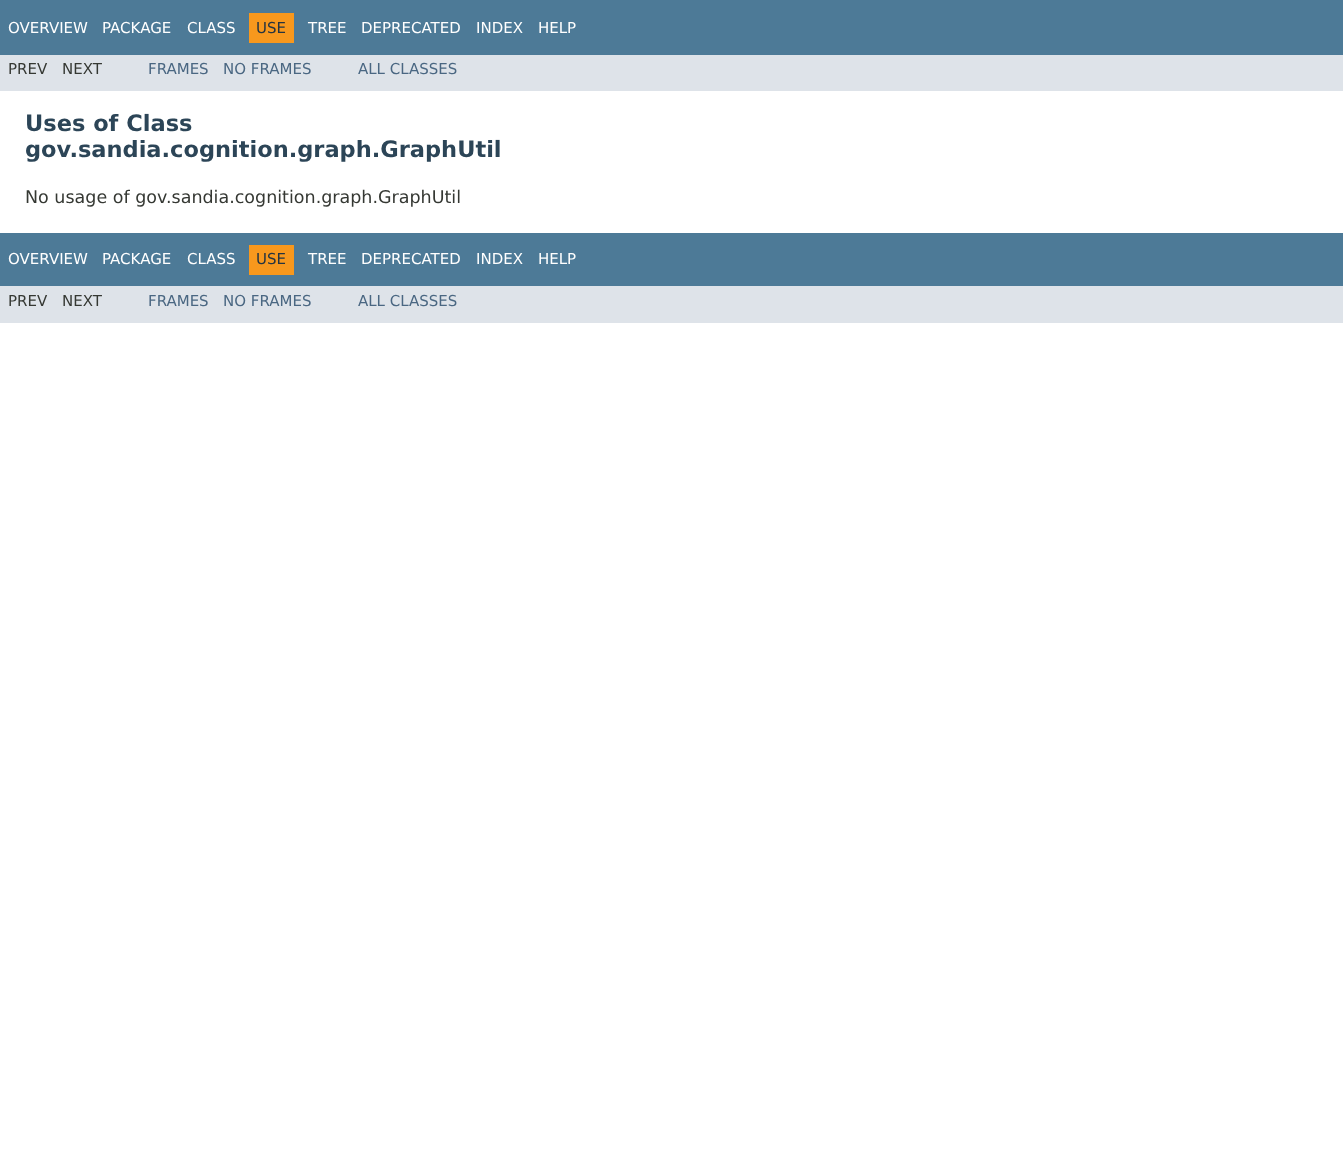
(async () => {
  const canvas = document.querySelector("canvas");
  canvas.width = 1343;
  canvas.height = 1153;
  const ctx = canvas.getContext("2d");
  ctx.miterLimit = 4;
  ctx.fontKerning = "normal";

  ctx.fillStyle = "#ffffff";
  ctx.fillRect(0, 0, 1343, 1153);
  for (const [x, y, w, h, color] of [
    [0, 0, 1343, 55, "#4d7a97"],
    [249, 13, 45, 30, "#f8981d"],
    [0, 55, 1343, 36, "#dee3e9"],
    [0, 233, 1343, 53, "#4d7a97"],
    [249, 245, 45, 30, "#f8981d"],
    [0, 286, 1343, 37, "#dee3e9"],
  ]) {
    ctx.fillStyle = color;
    ctx.fillRect(x, y, w, h);
  }
  ctx.font = "15px DejaVu Sans";
  ctx.fillStyle = "#ffffff";
  for (const [text, x, y] of [
    ["OVERVIEW", 8, 33],
    ["PACKAGE", 102, 33],
    ["CLASS", 187, 33],
  ]) {
    ctx.fillText(text, x, y);
  }
  ctx.fillStyle = "#253441";
  ctx.fillText("USE", 256, 33);
  ctx.fillStyle = "#ffffff";
  for (const [text, x, y] of [
    ["TREE", 308, 33],
    ["DEPRECATED", 361, 33],
    ["INDEX", 476, 33],
    ["HELP", 538, 33],
  ]) {
    ctx.fillText(text, x, y);
  }
  ctx.fillStyle = "#353833";
  ctx.fillText("PREV", 8, 74);
  ctx.fillText("NEXT", 62, 74);
  ctx.fillStyle = "#4a6782";
  for (const [text, x, y] of [
    ["FRAMES", 148, 74],
    ["NO FRAMES", 223, 74],
    ["ALL CLASSES", 358, 74],
  ]) {
    ctx.fillText(text, x, y);
  }
  ctx.font = "bold 22.5px DejaVu Sans";
  ctx.fillStyle = "#2c4557";
  ctx.fillText("Uses of Class", 25, 131);
  ctx.fillText("gov.sandia.cognition.graph.GraphUtil", 25, 157);
  ctx.font = "17.5px DejaVu Sans";
  ctx.fillStyle = "#353833";
  ctx.fillText("No usage of gov.sandia.cognition.graph.GraphUtil", 25, 203);
  ctx.font = "15px DejaVu Sans";
  ctx.fillStyle = "#ffffff";
  for (const [text, x, y] of [
    ["OVERVIEW", 8, 264],
    ["PACKAGE", 102, 264],
    ["CLASS", 187, 264],
  ]) {
    ctx.fillText(text, x, y);
  }
  ctx.fillStyle = "#253441";
  ctx.fillText("USE", 256, 264);
  ctx.fillStyle = "#ffffff";
  for (const [text, x, y] of [
    ["TREE", 308, 264],
    ["DEPRECATED", 361, 264],
    ["INDEX", 476, 264],
    ["HELP", 538, 264],
  ]) {
    ctx.fillText(text, x, y);
  }
  ctx.fillStyle = "#353833";
  ctx.fillText("PREV", 8, 306);
  ctx.fillText("NEXT", 62, 306);
  ctx.fillStyle = "#4a6782";
  for (const [text, x, y] of [
    ["FRAMES", 148, 306],
    ["NO FRAMES", 223, 306],
    ["ALL CLASSES", 358, 306],
  ]) {
    ctx.fillText(text, x, y);
  }
})();
